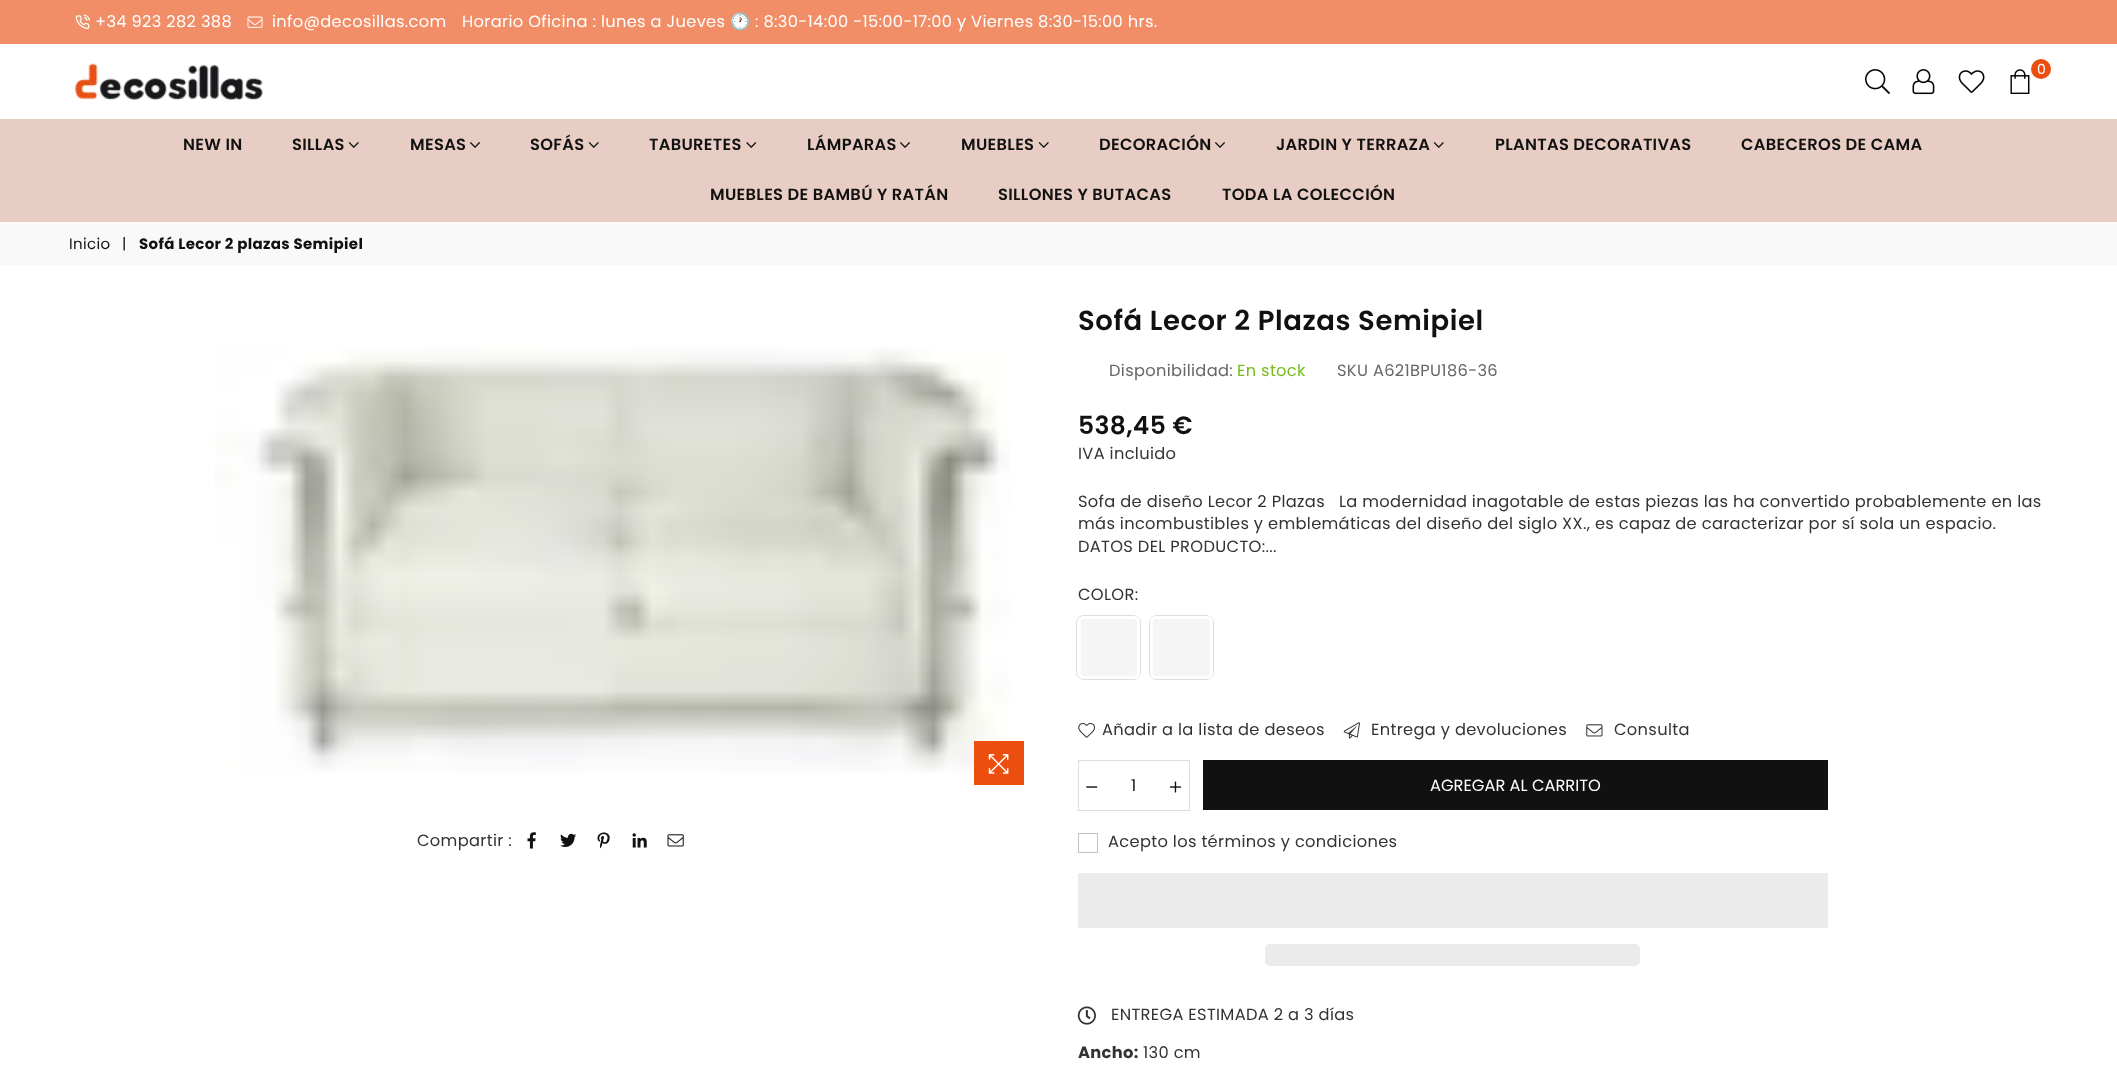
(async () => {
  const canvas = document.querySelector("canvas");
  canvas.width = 2117;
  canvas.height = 1073;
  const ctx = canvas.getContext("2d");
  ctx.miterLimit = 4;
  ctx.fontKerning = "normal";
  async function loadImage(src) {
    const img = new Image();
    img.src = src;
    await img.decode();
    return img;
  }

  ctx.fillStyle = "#ffffff";
  ctx.fillRect(0, 0, 2117, 1073);
  ctx.fillStyle = "#f18e67";
  ctx.fillRect(0, 0, 2117, 44);
  ctx.drawImage(await loadImage("img/1.png"), 75, 14, 15, 15);
  ctx.drawImage(await loadImage("img/2.png"), 247, 16, 16, 12);
  ctx.fillStyle = "#e7cdc3";
  ctx.fillRect(0, 119, 2117, 103);
  ctx.drawImage(await loadImage("img/3.png"), 75, 63, 188, 37);
  ctx.drawImage(await loadImage("img/4.png"), 1865, 69, 25, 25);
  ctx.drawImage(await loadImage("img/5.png"), 1912, 69, 23, 26);
  ctx.drawImage(await loadImage("img/6.png"), 1958, 70, 27, 23);
  ctx.drawImage(await loadImage("img/7.png"), 2010, 69, 20, 25);
  ctx.fillStyle = "#ec4e10";
  ctx.beginPath();
  ctx.arc(2041, 69, 10, 0, Math.PI * 2);
  ctx.fill();
  ctx.drawImage(await loadImage("img/8.png"), 348, 142, 11, 6);
  ctx.drawImage(await loadImage("img/9.png"), 470, 142, 10, 6);
  ctx.drawImage(await loadImage("img/8.png"), 588, 142, 11, 6);
  ctx.drawImage(await loadImage("img/10.png"), 746, 142, 11, 6);
  ctx.drawImage(await loadImage("img/9.png"), 900, 142, 10, 6);
  ctx.drawImage(await loadImage("img/8.png"), 1038, 142, 11, 6);
  ctx.drawImage(await loadImage("img/9.png"), 1215, 142, 10, 6);
  ctx.drawImage(await loadImage("img/8.png"), 1433, 142, 11, 6);
  ctx.fillStyle = "#f9f9f9";
  ctx.fillRect(0, 223, 2117, 42);
  ctx.drawImage(await loadImage("img/11.png"), 215, 347, 795, 426);
  ctx.fillStyle = "#ec4e10";
  ctx.fillRect(974, 741, 50, 44);
  ctx.drawImage(await loadImage("img/12.png"), 988, 754, 21, 20);
  ctx.drawImage(await loadImage("img/13.png"), 527, 832, 9, 17);
  ctx.drawImage(await loadImage("img/14.png"), 560, 833, 17, 14);
  ctx.drawImage(await loadImage("img/15.png"), 597, 832, 13, 17);
  ctx.drawImage(await loadImage("img/16.png"), 632, 833, 15, 15);
  ctx.drawImage(await loadImage("img/17.png"), 667, 834, 17, 13);
  ctx.beginPath();
  ctx.roundRect(1076.5, 615.5, 64, 64, 7.5);
  ctx.strokeStyle = "#dddddd";
  ctx.stroke();
  ctx.fillStyle = "#f5f5f5";
  ctx.beginPath();
  ctx.roundRect(1079.5, 617.5, 59, 60, 4.5);
  ctx.fill();
  ctx.strokeStyle = "#ffffff";
  ctx.lineWidth = 3;
  ctx.stroke();
  ctx.beginPath();
  ctx.roundRect(1149.5, 615.5, 64, 64, 7.5);
  ctx.strokeStyle = "#dddddd";
  ctx.lineWidth = 1;
  ctx.stroke();
  ctx.beginPath();
  ctx.roundRect(1151.5, 617.5, 60, 60, 4.5);
  ctx.fill();
  ctx.strokeStyle = "#ffffff";
  ctx.lineWidth = 3;
  ctx.stroke();
  ctx.drawImage(await loadImage("img/18.png"), 1078, 723, 17, 15);
  ctx.drawImage(await loadImage("img/19.png"), 1343, 722, 17, 17);
  ctx.drawImage(await loadImage("img/20.png"), 1586, 724, 17, 13);
  ctx.strokeStyle = "#dddddd";
  ctx.lineWidth = 1;
  ctx.strokeRect(1078.5, 760.5, 111, 50);
  ctx.drawImage(await loadImage("img/21.png"), 1086, 786, 12, 2);
  ctx.drawImage(await loadImage("img/22.png"), 1170, 781, 11, 12);
  ctx.fillStyle = "#111111";
  ctx.fillRect(1203, 760, 625, 50);
  ctx.strokeStyle = "#c2c2c2";
  ctx.strokeRect(1078.5, 833.5, 19, 19);
  ctx.fillStyle = "#ebebeb";
  ctx.fillRect(1078, 873, 750, 55);
  ctx.beginPath();
  ctx.roundRect(1265, 944, 375, 22, 5);
  ctx.fill();
  ctx.drawImage(await loadImage("img/23.png"), 1077, 1006, 19, 19);
  ctx.letterSpacing = "0.33px";
  ctx.font = "16.25px Poppins";
  ctx.fillStyle = "#ffffff";
  for (const [text, x, y] of [
    ["+34 923 282 388", 95, 27],
    ["info@decosillas.com", 272, 27],
    ["Horario Oficina : lunes a Jueves", 462, 27],
  ]) {
    ctx.fillText(text, x, y);
  }
  ctx.font = "16.25px Noto Color Emoji";
  ctx.fillText("🕐", 730, 27);
  ctx.font = "16.25px Poppins";
  ctx.fillText(": 8:30-14:00 -15:00-17:00 y Viernes 8:30-15:00 hrs.", 755, 27);
  ctx.font = "14px Poppins";
  ctx.fillText("0", 2037, 74);
  ctx.font = "600 16.25px Poppins";
  ctx.fillStyle = "#111111";
  for (const [text, x, y] of [
    ["NEW IN", 183, 150],
    ["SILLAS", 292, 150],
    ["MESAS", 410, 150],
    ["SOFÁS", 530, 150],
    ["TABURETES", 649, 150],
    ["LÁMPARAS", 807, 150],
    ["MUEBLES", 961, 150],
    ["DECORACIÓN", 1099, 150],
    ["JARDIN Y TERRAZA", 1276, 150],
    ["PLANTAS DECORATIVAS", 1495, 150],
    ["CABECEROS DE CAMA", 1741, 150],
    ["MUEBLES DE BAMBÚ Y RATÁN", 710, 200],
    ["SILLONES Y BUTACAS", 998, 200],
    ["TODA LA COLECCIÓN", 1222, 200],
  ]) {
    ctx.fillText(text, x, y);
  }
  ctx.font = "15px Poppins";
  ctx.fillText("Inicio", 69, 249);
  ctx.fillText("|", 122, 249);
  ctx.font = "bold 15px Poppins";
  ctx.fillText("Sofá Lecor 2 plazas Semipiel", 139, 249);
  ctx.font = "16.25px Poppins";
  ctx.fillStyle = "#333333";
  ctx.fillText("Compartir :", 417, 846);
  ctx.letterSpacing = "0.55px";
  ctx.font = "600 27.5px Poppins";
  ctx.fillStyle = "#111111";
  ctx.fillText("Sofá Lecor 2 Plazas Semipiel", 1078, 330);
  ctx.letterSpacing = "0.33px";
  ctx.font = "16.25px Poppins";
  ctx.fillStyle = "#666666";
  ctx.fillText("Disponibilidad:", 1109, 376);
  ctx.fillStyle = "#76bd1c";
  ctx.fillText("En stock", 1237, 376);
  ctx.fillStyle = "#666666";
  ctx.fillText("SKU A621BPU186-36", 1337, 376);
  ctx.font = "600 25px Poppins";
  ctx.fillStyle = "#111111";
  ctx.fillText("538,45 €", 1078, 434);
  ctx.font = "16.25px Poppins";
  ctx.fillStyle = "#333333";
  for (const [text, x, y] of [
    ["IVA incluido", 1078, 459],
    ["Sofa de diseño Lecor 2 Plazas   La modernidad inagotable de estas piezas las ha convertido probablemente en las", 1078, 507],
    ["más incombustibles y emblemáticas del diseño del siglo XX., es capaz de caracterizar por sí sola un espacio.", 1078, 529],
    ["DATOS DEL PRODUCTO:...", 1078, 552],
    ["COLOR:", 1078, 600],
    ["Añadir a la lista de deseos", 1102, 735],
    ["Entrega y devoluciones", 1371, 735],
    ["Consulta", 1614, 735],
  ]) {
    ctx.fillText(text, x, y);
  }
  ctx.letterSpacing = "0px";
  ctx.fillStyle = "#111111";
  ctx.fillText("1", 1131, 791);
  ctx.fillStyle = "#ffffff";
  ctx.fillText("AGREGAR AL CARRITO", 1430, 791);
  ctx.letterSpacing = "0.33px";
  ctx.fillStyle = "#333333";
  ctx.fillText("Acepto los términos y condiciones", 1108, 847);
  ctx.fillText("ENTREGA ESTIMADA 2 a 3 días", 1111, 1020);
  ctx.font = "bold 16.25px Poppins";
  ctx.fillText("Ancho:", 1078, 1058);
  ctx.font = "16.25px Poppins";
  ctx.fillText("130 cm", 1143, 1058);
})();
